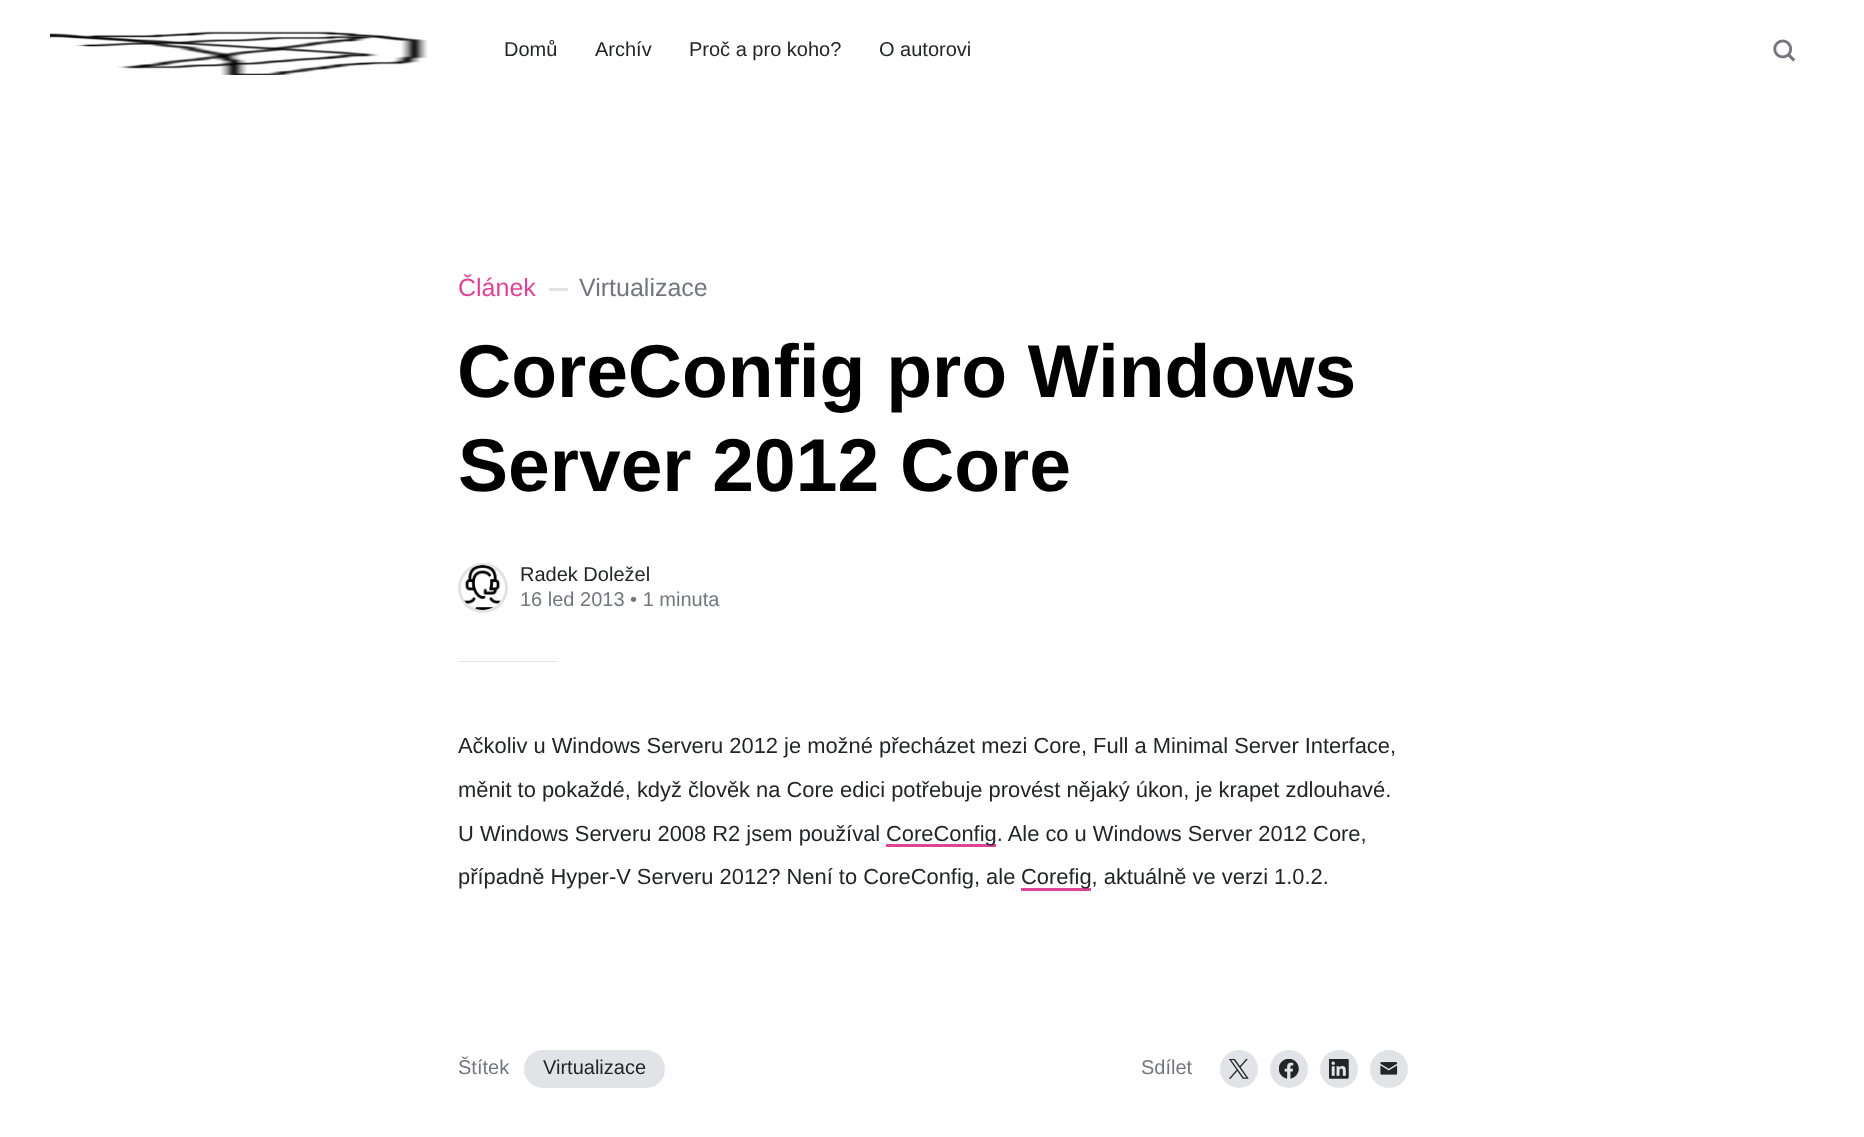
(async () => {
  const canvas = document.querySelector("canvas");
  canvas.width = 1864;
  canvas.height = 1137;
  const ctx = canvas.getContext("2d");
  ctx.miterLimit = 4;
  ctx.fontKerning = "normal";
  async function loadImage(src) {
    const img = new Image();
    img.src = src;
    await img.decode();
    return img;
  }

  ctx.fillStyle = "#ffffff";
  ctx.fillRect(0, 0, 1864, 1137);
  ctx.drawImage(await loadImage("img/1.png"), 50, 31, 378, 44);
  ctx.drawImage(await loadImage("img/2.png"), 1773, 39, 23, 23);
  ctx.fillStyle = "#e1e3e6";
  ctx.fillRect(549, 288, 19, 3);
  ctx.beginPath();
  ctx.arc(483, 588, 23.5, 0, Math.PI * 2);
  ctx.strokeStyle = "#e1e3e6";
  ctx.lineWidth = 3;
  ctx.stroke();
  ctx.drawImage(await loadImage("img/3.png"), 464, 565, 37, 45);
  for (const [x, y, w, h, color] of [
    [458, 661, 100, 1, "#e1e3e6"],
    [886, 844, 110, 3, "#df4397"],
    [1021, 888, 70, 3, "#df4397"],
  ]) {
    ctx.fillStyle = color;
    ctx.fillRect(x, y, w, h);
  }
  ctx.fillStyle = "#e1e3e6";
  ctx.beginPath();
  ctx.roundRect(524, 1050, 141, 38, 19);
  ctx.fill();
  ctx.beginPath();
  ctx.arc(1239, 1069, 19, 0, Math.PI * 2);
  ctx.fill();
  ctx.drawImage(await loadImage("img/4.png"), 1229, 1059, 20, 20);
  ctx.beginPath();
  ctx.arc(1289, 1069, 19, 0, Math.PI * 2);
  ctx.fill();
  ctx.drawImage(await loadImage("img/5.png"), 1279, 1059, 20, 20);
  ctx.beginPath();
  ctx.arc(1339, 1069, 19, 0, Math.PI * 2);
  ctx.fill();
  ctx.drawImage(await loadImage("img/6.png"), 1329, 1059, 20, 20);
  ctx.beginPath();
  ctx.arc(1389, 1069, 19, 0, Math.PI * 2);
  ctx.fill();
  ctx.drawImage(await loadImage("img/7.png"), 1380, 1062, 18, 13);
  ctx.font = "20px Liberation Sans";
  ctx.fillStyle = "#222426";
  for (const [text, x, y] of [
    ["Domů", 504, 56],
    ["Archív", 595, 56],
    ["Proč a pro koho?", 689, 56],
    ["O autorovi", 879, 56],
  ]) {
    ctx.fillText(text, x, y);
  }
  ctx.font = "25px Liberation Sans";
  ctx.fillStyle = "#df4397";
  ctx.fillText("Článek", 458, 296);
  ctx.fillStyle = "#73777d";
  ctx.fillText("Virtualizace", 579, 296);
  ctx.font = "bold 75px Liberation Sans";
  ctx.fillStyle = "#000000";
  ctx.fillText("CoreConfig pro Windows", 457, 397);
  ctx.fillText("Server 2012 Core", 458, 491);
  ctx.font = "20px Liberation Sans";
  ctx.fillStyle = "#222426";
  ctx.fillText("Radek Doležel", 520, 581);
  ctx.fillStyle = "#73777d";
  ctx.fillText("16 led 2013 • 1 minuta", 520, 606);
  ctx.font = "21.9px Liberation Sans";
  ctx.fillStyle = "#222426";
  for (const [text, x, y] of [
    ["Ačkoliv u Windows Serveru 2012 je možné přecházet mezi Core, Full a Minimal Server Interface,", 458, 753],
    ["měnit to pokaždé, když člověk na Core edici potřebuje provést nějaký úkon, je krapet zdlouhavé.", 458, 797],
    ["U Windows Serveru 2008 R2 jsem používal", 458, 841],
    ["CoreConfig. Ale co u Windows Server 2012 Core,", 886, 841],
    ["případně Hyper-V Serveru 2012? Není to CoreConfig, ale", 458, 884],
    ["Corefig, aktuálně ve verzi 1.0.2.", 1021, 884],
  ]) {
    ctx.fillText(text, x, y);
  }
  ctx.font = "20px Liberation Sans";
  ctx.fillStyle = "#73777d";
  ctx.fillText("Štítek", 458, 1074);
  ctx.fillStyle = "#222426";
  ctx.fillText("Virtualizace", 543, 1074);
  ctx.fillStyle = "#73777d";
  ctx.fillText("Sdílet", 1141, 1074);
})();
